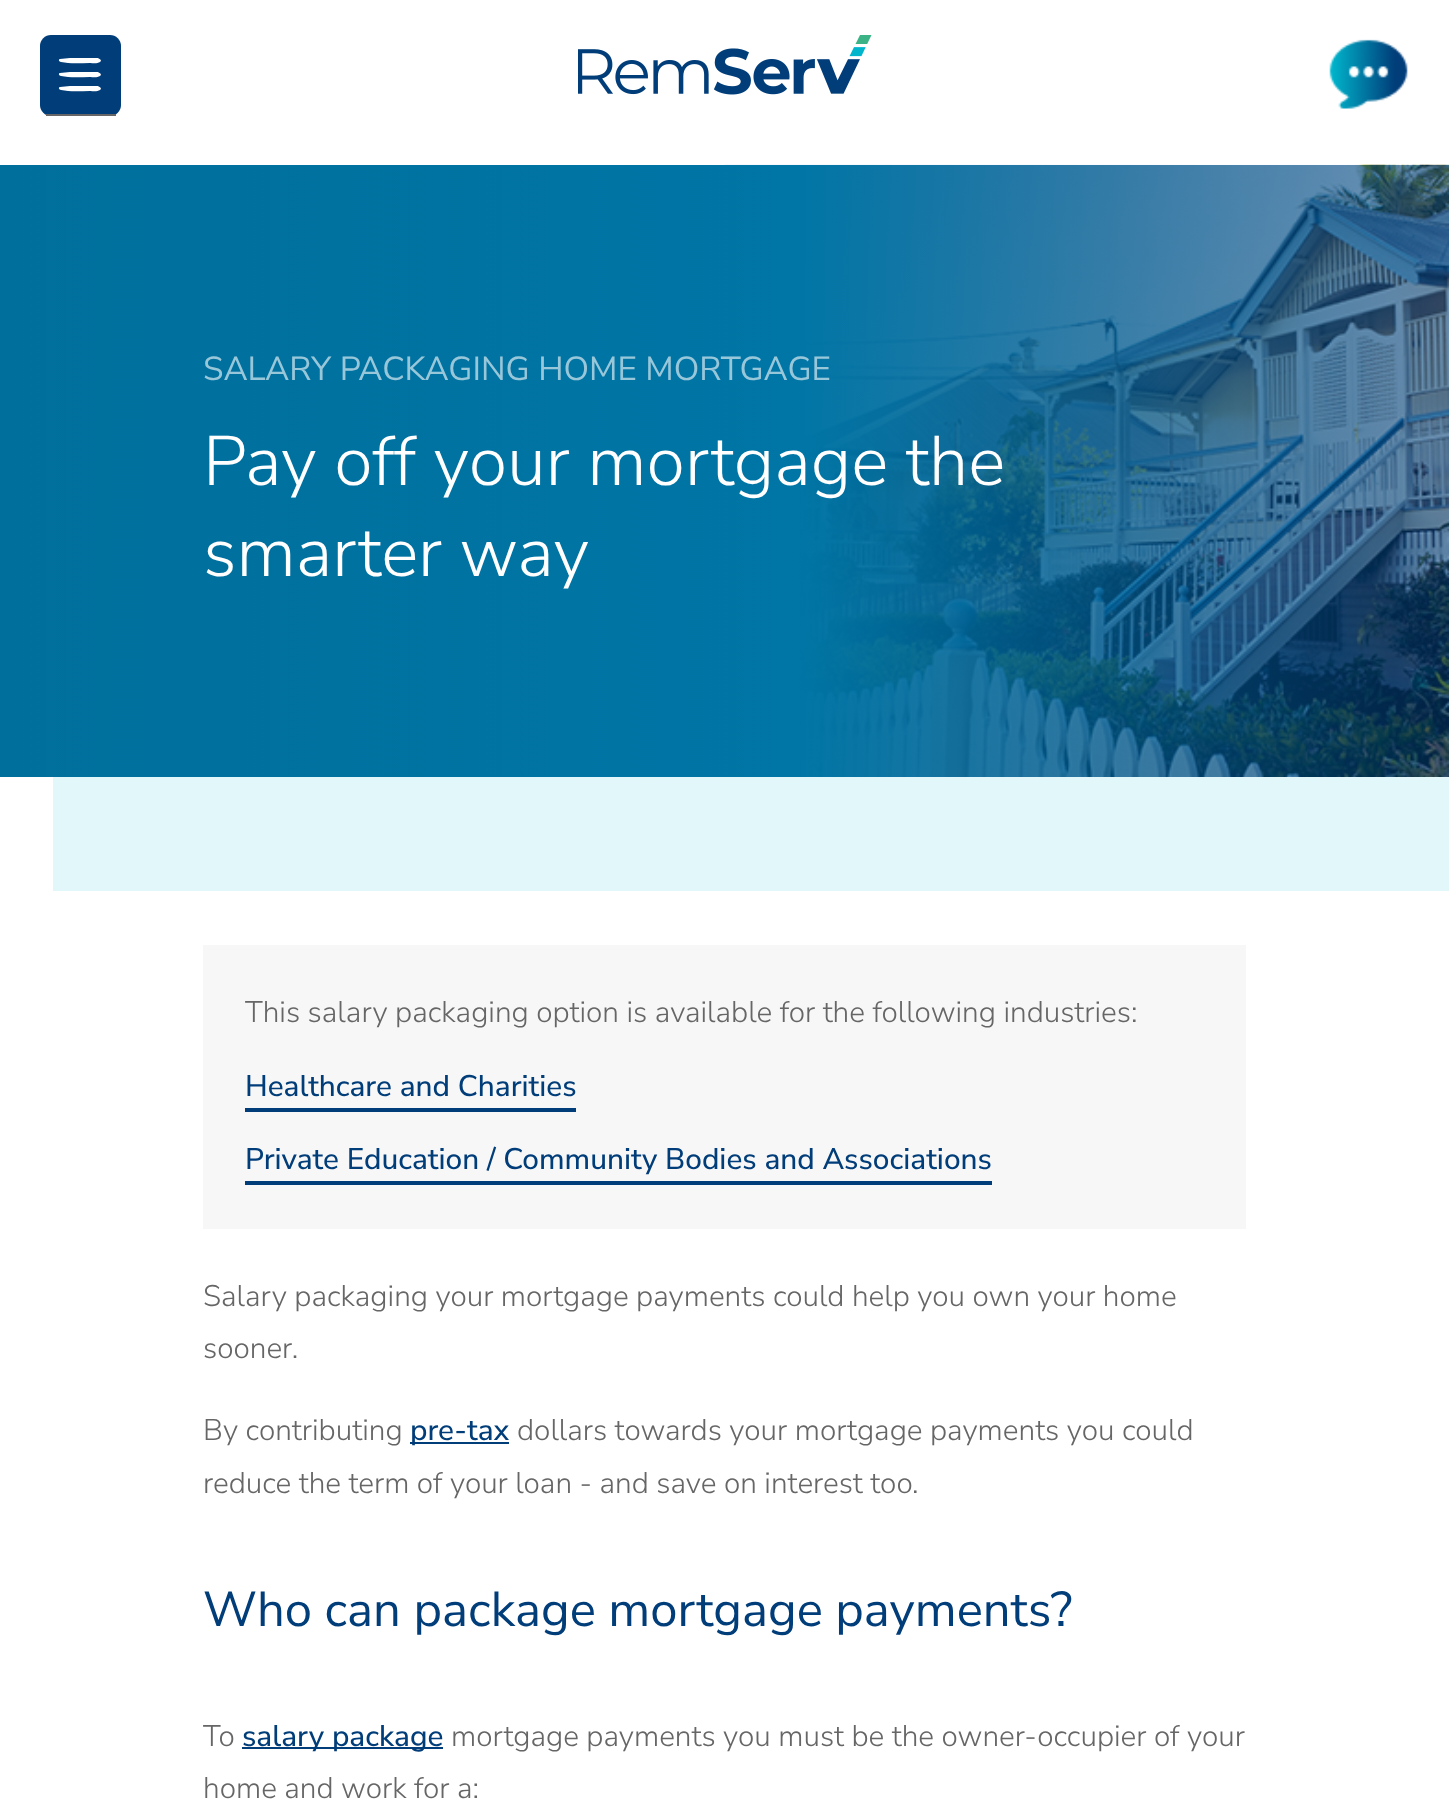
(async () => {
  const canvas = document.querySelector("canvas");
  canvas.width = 1449;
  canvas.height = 1803;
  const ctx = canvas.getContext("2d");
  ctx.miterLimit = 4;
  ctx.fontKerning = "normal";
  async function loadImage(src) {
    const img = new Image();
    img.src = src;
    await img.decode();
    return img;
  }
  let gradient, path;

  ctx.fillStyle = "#ffffff";
  ctx.fillRect(0, 0, 1449, 1803);
  ctx.fillStyle = "#003d79";
  ctx.beginPath();
  ctx.roundRect(40, 35, 81, 81, 11);
  ctx.fill();
  ctx.fillStyle = "#666666";
  ctx.fillRect(46, 114, 70, 2);
  ctx.fillStyle = "#ffffff";
  path = new Path2D("M70 58H97C98 58 103 60 100 62C97 64 92 63 90 63C81 63 70 64 61 62C59 62 58 59 60 59ZM70 72H97C98 72 103 74 100 76C97 78 92 77 90 77C81 77 70 78 61 76C59 76 58 73 60 73ZM70 86H97C98 86 103 88 100 90C97 92 92 91 90 91C81 91 70 92 61 90C59 90 58 87 60 87Z");
  ctx.fill(path);
  ctx.drawImage(await loadImage("img/1.png"), 578, 35, 294, 60);
  ctx.drawImage(await loadImage("img/2.png"), 1329, 39, 79, 70);
  ctx.fillStyle = "#e1f7fa";
  ctx.fillRect(53, 777, 1396, 114);
  ctx.drawImage(await loadImage("img/3.png"), 724, 164, 725, 613);
  gradient = ctx.createLinearGradient(1449, 471, 0, 471);
  gradient.addColorStop(0, "rgba(0, 61, 121, 0.55)");
  gradient.addColorStop(0.45, "#0076a6");
  gradient.addColorStop(1, "#006f9c");
  ctx.fillStyle = gradient;
  ctx.fillRect(0, 165, 1449, 612);
  for (const [x, y, w, h, color] of [
    [203, 945, 1043, 284, "#f7f7f7"],
    [245, 1108, 331, 4, "#003d79"],
    [245, 1181, 747, 4, "#003d79"],
    [410, 1442, 99, 2, "#003d79"],
    [242, 1747, 201, 2, "#003d79"],
  ]) {
    ctx.fillStyle = color;
    ctx.fillRect(x, y, w, h);
  }
  ctx.font = "33.25px Nunito Sans";
  ctx.fillStyle = "#99c7da";
  ctx.fillText("SALARY PACKAGING HOME MORTGAGE", 203, 380);
  ctx.font = "300 70px Nunito Sans";
  ctx.fillStyle = "#ffffff";
  ctx.fillText("Pay off your mortgage the", 203, 485);
  ctx.fillText("smarter way", 203, 576);
  ctx.font = "300 29.75px Nunito Sans";
  ctx.fillStyle = "#666666";
  ctx.fillText("This salary packaging option is available for the following industries:", 245, 1022);
  ctx.font = "500 29.75px Nunito Sans";
  ctx.fillStyle = "#003d79";
  ctx.fillText("Healthcare and Charities", 245, 1096);
  ctx.fillText("Private Education / Community Bodies and Associations", 245, 1169);
  ctx.font = "300 29.75px Nunito Sans";
  ctx.fillStyle = "#666666";
  for (const [text, x, y] of [
    ["Salary packaging your mortgage payments could help you own your home", 203, 1306],
    ["sooner.", 203, 1358],
    ["By contributing", 203, 1440],
  ]) {
    ctx.fillText(text, x, y);
  }
  ctx.font = "500 29.75px Nunito Sans";
  ctx.fillStyle = "#003d79";
  ctx.fillText("pre-tax", 410, 1440);
  ctx.font = "300 29.75px Nunito Sans";
  ctx.fillStyle = "#666666";
  ctx.fillText("dollars towards your mortgage payments you could", 517, 1440);
  ctx.fillText("reduce the term of your loan - and save on interest too.", 203, 1493);
  ctx.font = "49px Nunito Sans";
  ctx.fillStyle = "#003d79";
  ctx.fillText("Who can package mortgage payments?", 203, 1626);
  ctx.font = "300 29.75px Nunito Sans";
  ctx.fillStyle = "#666666";
  ctx.fillText("To", 203, 1746);
  ctx.font = "500 29.75px Nunito Sans";
  ctx.fillStyle = "#003d79";
  ctx.fillText("salary package", 242, 1746);
  ctx.font = "300 29.75px Nunito Sans";
  ctx.fillStyle = "#666666";
  ctx.fillText("mortgage payments you must be the owner-occupier of your", 451, 1746);
  ctx.fillText("home and work for a:", 203, 1798);
})();
